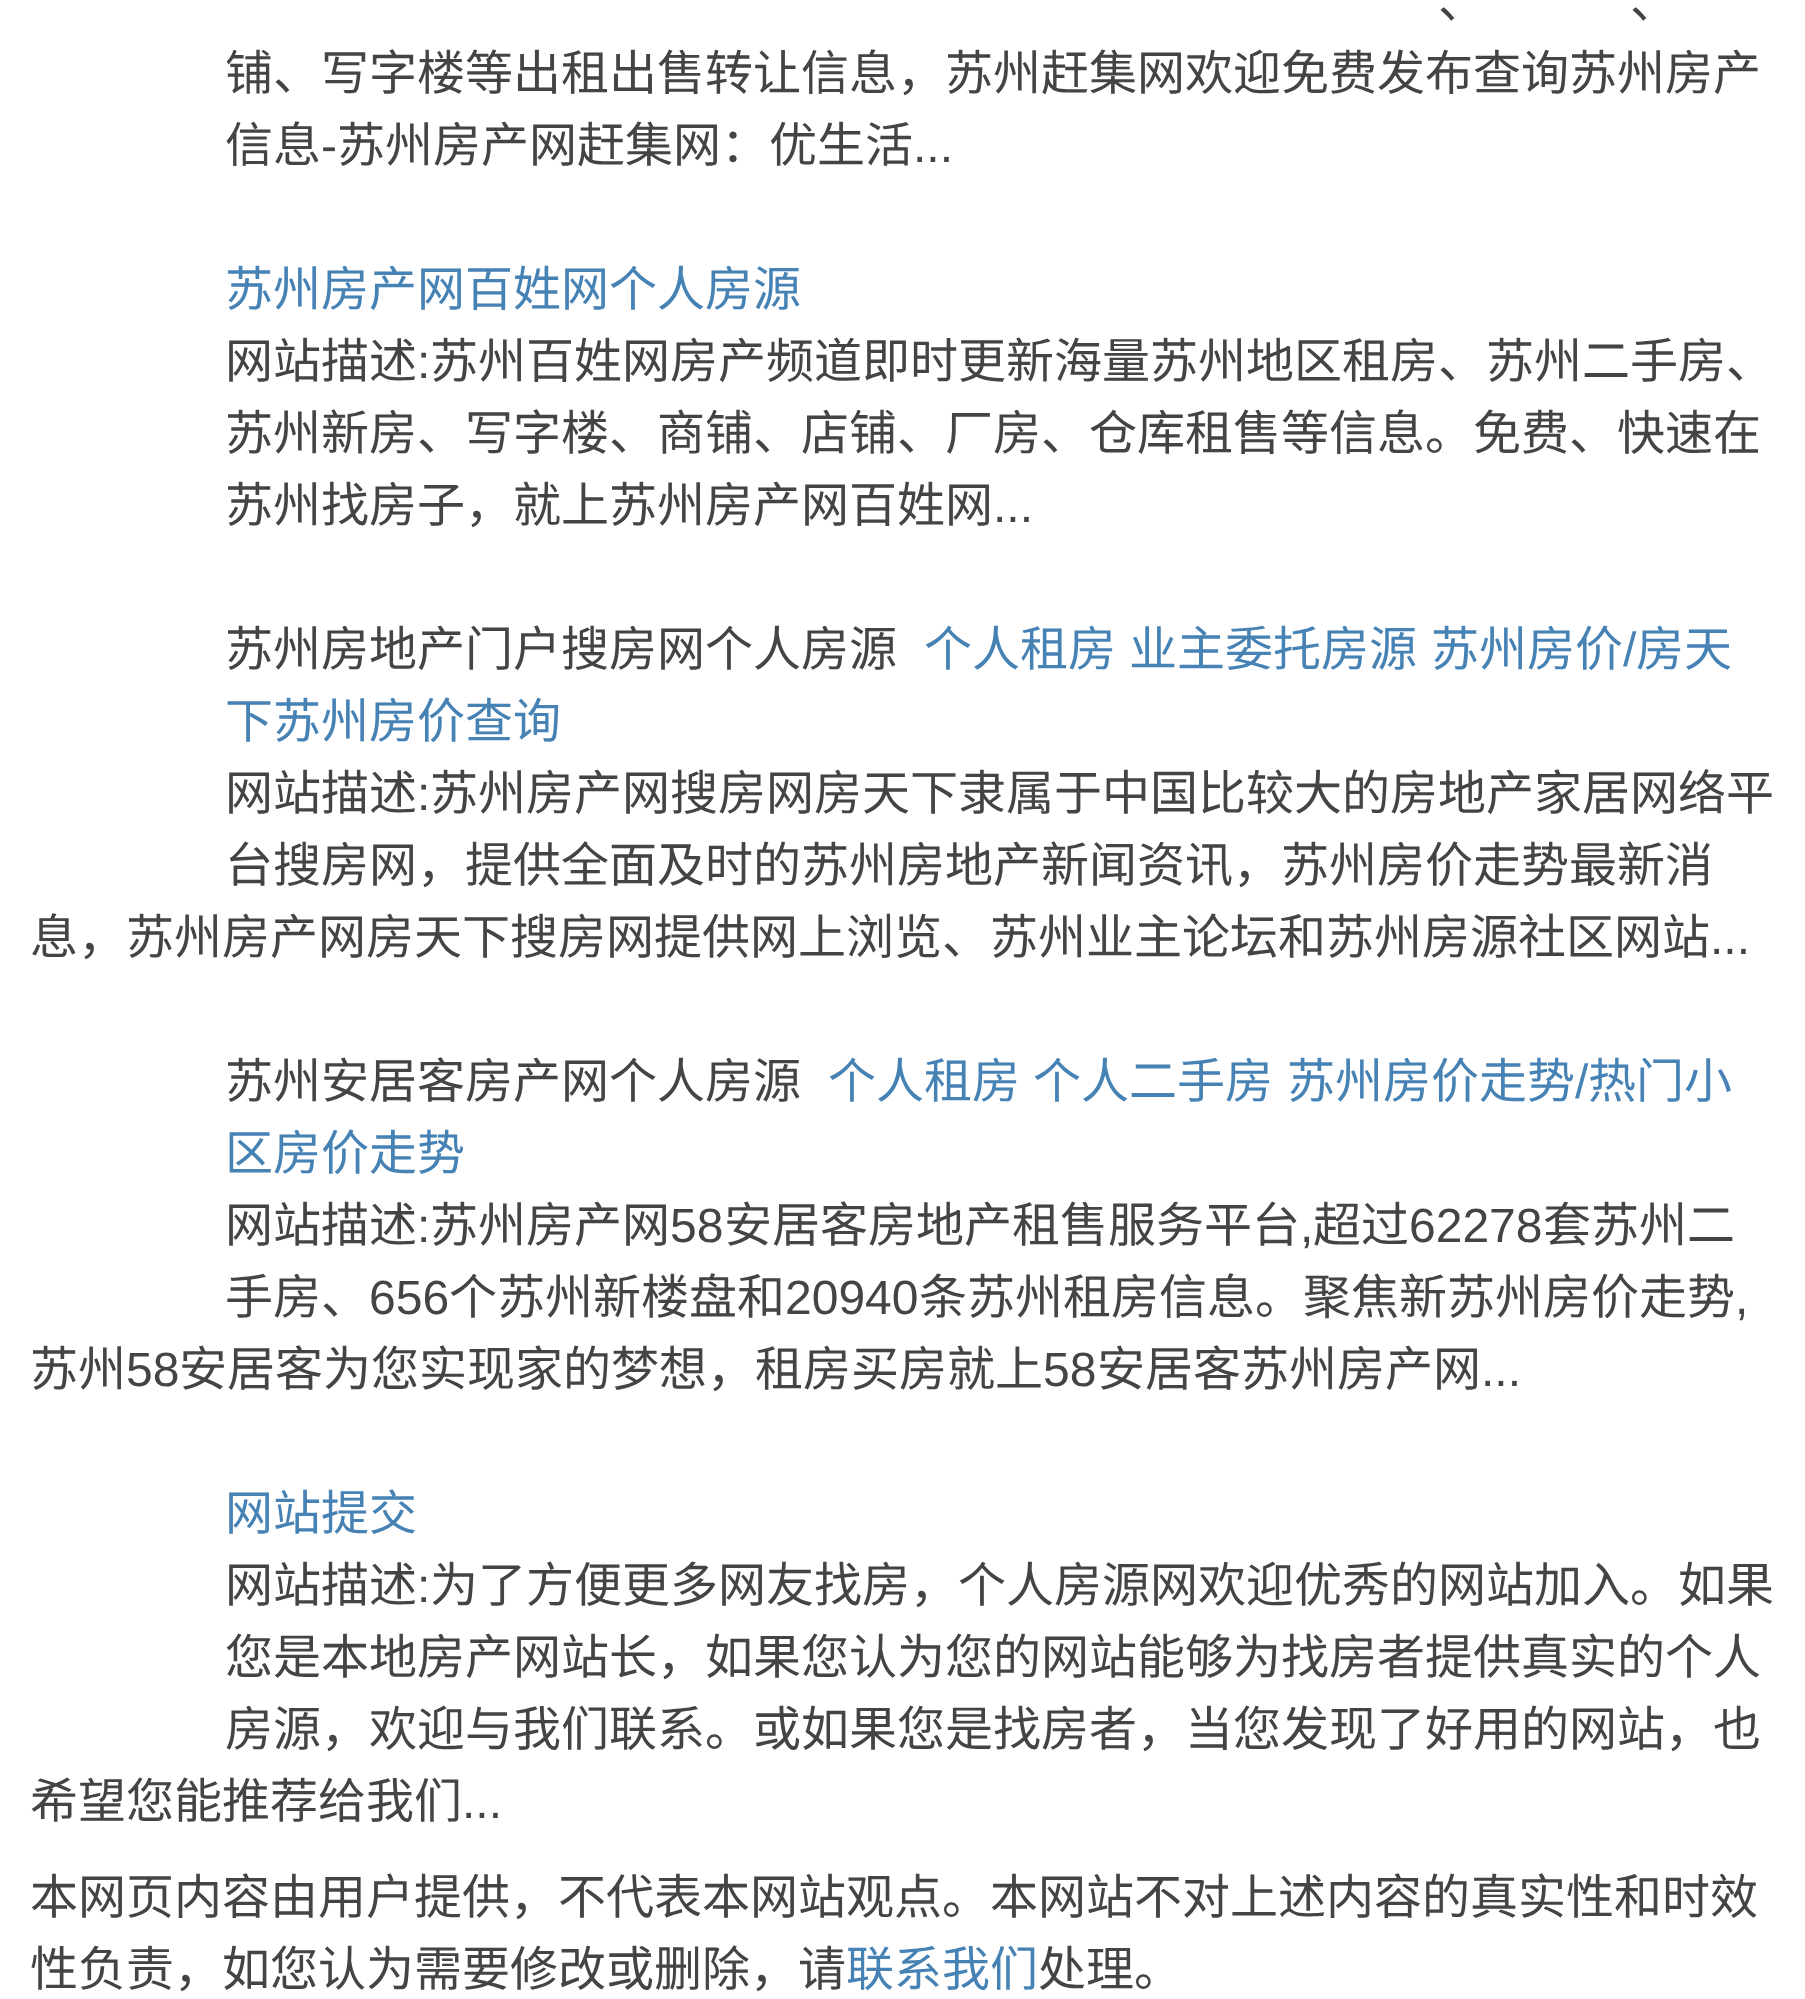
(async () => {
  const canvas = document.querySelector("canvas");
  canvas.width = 1805;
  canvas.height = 1999;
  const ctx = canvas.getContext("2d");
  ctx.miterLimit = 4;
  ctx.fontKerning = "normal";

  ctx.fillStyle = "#ffffff";
  ctx.fillRect(0, 0, 1805, 1999);
  ctx.font = "48px Noto Sans CJK SC";
  ctx.fillStyle = "#444444";
  for (const [text, x, y] of [
    ["、", 1438, 18],
    ["、", 1630, 18],
    ["铺、写字楼等出租出售转让信息，苏州赶集网欢迎免费发布查询苏州房产", 225, 90],
    ["信息", 225, 162],
  ]) {
    ctx.fillText(text, x, y);
  }
  ctx.font = "48px Liberation Sans";
  ctx.fillText("-", 321, 162);
  ctx.font = "48px Noto Sans CJK SC";
  ctx.fillText("苏州房产网赶集网：优生活", 337, 162);
  ctx.font = "48px Liberation Sans";
  ctx.fillText("...", 913, 162);
  ctx.font = "48px Noto Sans CJK SC";
  ctx.fillStyle = "#4682b4";
  ctx.fillText("苏州房产网百姓网个人房源", 225, 306);
  ctx.fillStyle = "#444444";
  ctx.fillText("网站描述", 225, 378);
  ctx.font = "48px Liberation Sans";
  ctx.fillText(":", 417, 378);
  ctx.font = "48px Noto Sans CJK SC";
  for (const [text, x, y] of [
    ["苏州百姓网房产频道即时更新海量苏州地区租房、苏州二手房、", 430, 378],
    ["苏州新房、写字楼、商铺、店铺、厂房、仓库租售等信息。免费、快速在", 225, 450],
    ["苏州找房子，就上苏州房产网百姓网", 225, 522],
  ]) {
    ctx.fillText(text, x, y);
  }
  ctx.font = "48px Liberation Sans";
  ctx.fillText("...", 993, 522);
  ctx.font = "48px Noto Sans CJK SC";
  ctx.fillText("苏州房地产门户搜房网个人房源", 225, 666);
  ctx.fillStyle = "#4682b4";
  for (const [text, x, y] of [
    ["个人租房", 924, 666],
    ["业主委托房源", 1129, 666],
    ["苏州房价", 1431, 666],
  ]) {
    ctx.fillText(text, x, y);
  }
  ctx.font = "48px Liberation Sans";
  ctx.fillText("/", 1623, 666);
  ctx.font = "48px Noto Sans CJK SC";
  ctx.fillText("房天", 1636, 666);
  ctx.fillText("下苏州房价查询", 225, 738);
  ctx.fillStyle = "#444444";
  ctx.fillText("网站描述", 225, 810);
  ctx.font = "48px Liberation Sans";
  ctx.fillText(":", 417, 810);
  ctx.font = "48px Noto Sans CJK SC";
  for (const [text, x, y] of [
    ["苏州房产网搜房网房天下隶属于中国比较大的房地产家居网络平", 430, 810],
    ["台搜房网，提供全面及时的苏州房地产新闻资讯，苏州房价走势最新消", 225, 882],
    ["息，苏州房产网房天下搜房网提供网上浏览、苏州业主论坛和苏州房源社区网站", 30, 954],
  ]) {
    ctx.fillText(text, x, y);
  }
  ctx.font = "48px Liberation Sans";
  ctx.fillText("...", 1710, 954);
  ctx.font = "48px Noto Sans CJK SC";
  ctx.fillText("苏州安居客房产网个人房源", 225, 1098);
  ctx.fillStyle = "#4682b4";
  for (const [text, x, y] of [
    ["个人租房", 828, 1098],
    ["个人二手房", 1033, 1098],
    ["苏州房价走势", 1287, 1098],
  ]) {
    ctx.fillText(text, x, y);
  }
  ctx.font = "48px Liberation Sans";
  ctx.fillText("/", 1575, 1098);
  ctx.font = "48px Noto Sans CJK SC";
  ctx.fillText("热门小", 1588, 1098);
  ctx.fillText("区房价走势", 225, 1170);
  ctx.fillStyle = "#444444";
  ctx.fillText("网站描述", 225, 1242);
  ctx.font = "48px Liberation Sans";
  ctx.fillText(":", 417, 1242);
  ctx.font = "48px Noto Sans CJK SC";
  ctx.fillText("苏州房产网", 430, 1242);
  ctx.font = "48px Liberation Sans";
  ctx.fillText("58", 670, 1242);
  ctx.font = "48px Noto Sans CJK SC";
  ctx.fillText("安居客房地产租售服务平台", 724, 1242);
  ctx.font = "48px Liberation Sans";
  ctx.fillText(",", 1300, 1242);
  ctx.font = "48px Noto Sans CJK SC";
  ctx.fillText("超过", 1313, 1242);
  ctx.font = "48px Liberation Sans";
  ctx.fillText("62278", 1409, 1242);
  ctx.font = "48px Noto Sans CJK SC";
  ctx.fillText("套苏州二", 1543, 1242);
  ctx.fillText("手房、", 225, 1314);
  ctx.font = "48px Liberation Sans";
  ctx.fillText("656", 369, 1314);
  ctx.font = "48px Noto Sans CJK SC";
  ctx.fillText("个苏州新楼盘和", 449, 1314);
  ctx.font = "48px Liberation Sans";
  ctx.fillText("20940", 785, 1314);
  ctx.font = "48px Noto Sans CJK SC";
  ctx.fillText("条苏州租房信息。聚焦新苏州房价走势", 919, 1314);
  ctx.font = "48px Liberation Sans";
  ctx.fillText(",", 1735, 1314);
  ctx.font = "48px Noto Sans CJK SC";
  ctx.fillText("苏州", 30, 1386);
  ctx.font = "48px Liberation Sans";
  ctx.fillText("58", 126, 1386);
  ctx.font = "48px Noto Sans CJK SC";
  ctx.fillText("安居客为您实现家的梦想，租房买房就上", 179, 1386);
  ctx.font = "48px Liberation Sans";
  ctx.fillText("58", 1043, 1386);
  ctx.font = "48px Noto Sans CJK SC";
  ctx.fillText("安居客苏州房产网", 1097, 1386);
  ctx.font = "48px Liberation Sans";
  ctx.fillText("...", 1481, 1386);
  ctx.font = "48px Noto Sans CJK SC";
  ctx.fillStyle = "#4682b4";
  ctx.fillText("网站提交", 225, 1530);
  ctx.fillStyle = "#444444";
  ctx.fillText("网站描述", 225, 1602);
  ctx.font = "48px Liberation Sans";
  ctx.fillText(":", 417, 1602);
  ctx.font = "48px Noto Sans CJK SC";
  for (const [text, x, y] of [
    ["为了方便更多网友找房，个人房源网欢迎优秀的网站加入。如果", 430, 1602],
    ["您是本地房产网站长，如果您认为您的网站能够为找房者提供真实的个人", 225, 1674],
    ["房源，欢迎与我们联系。或如果您是找房者，当您发现了好用的网站，也", 225, 1746],
    ["希望您能推荐给我们", 30, 1818],
  ]) {
    ctx.fillText(text, x, y);
  }
  ctx.font = "48px Liberation Sans";
  ctx.fillText("...", 462, 1818);
  ctx.font = "48px Noto Sans CJK SC";
  ctx.fillText("本网页内容由用户提供，不代表本网站观点。本网站不对上述内容的真实性和时效", 30, 1914);
  ctx.fillText("性负责，如您认为需要修改或删除，请", 30, 1986);
  ctx.fillStyle = "#4682b4";
  ctx.fillText("联系我们", 846, 1986);
  ctx.fillStyle = "#444444";
  ctx.fillText("处理。", 1038, 1986);
})();
